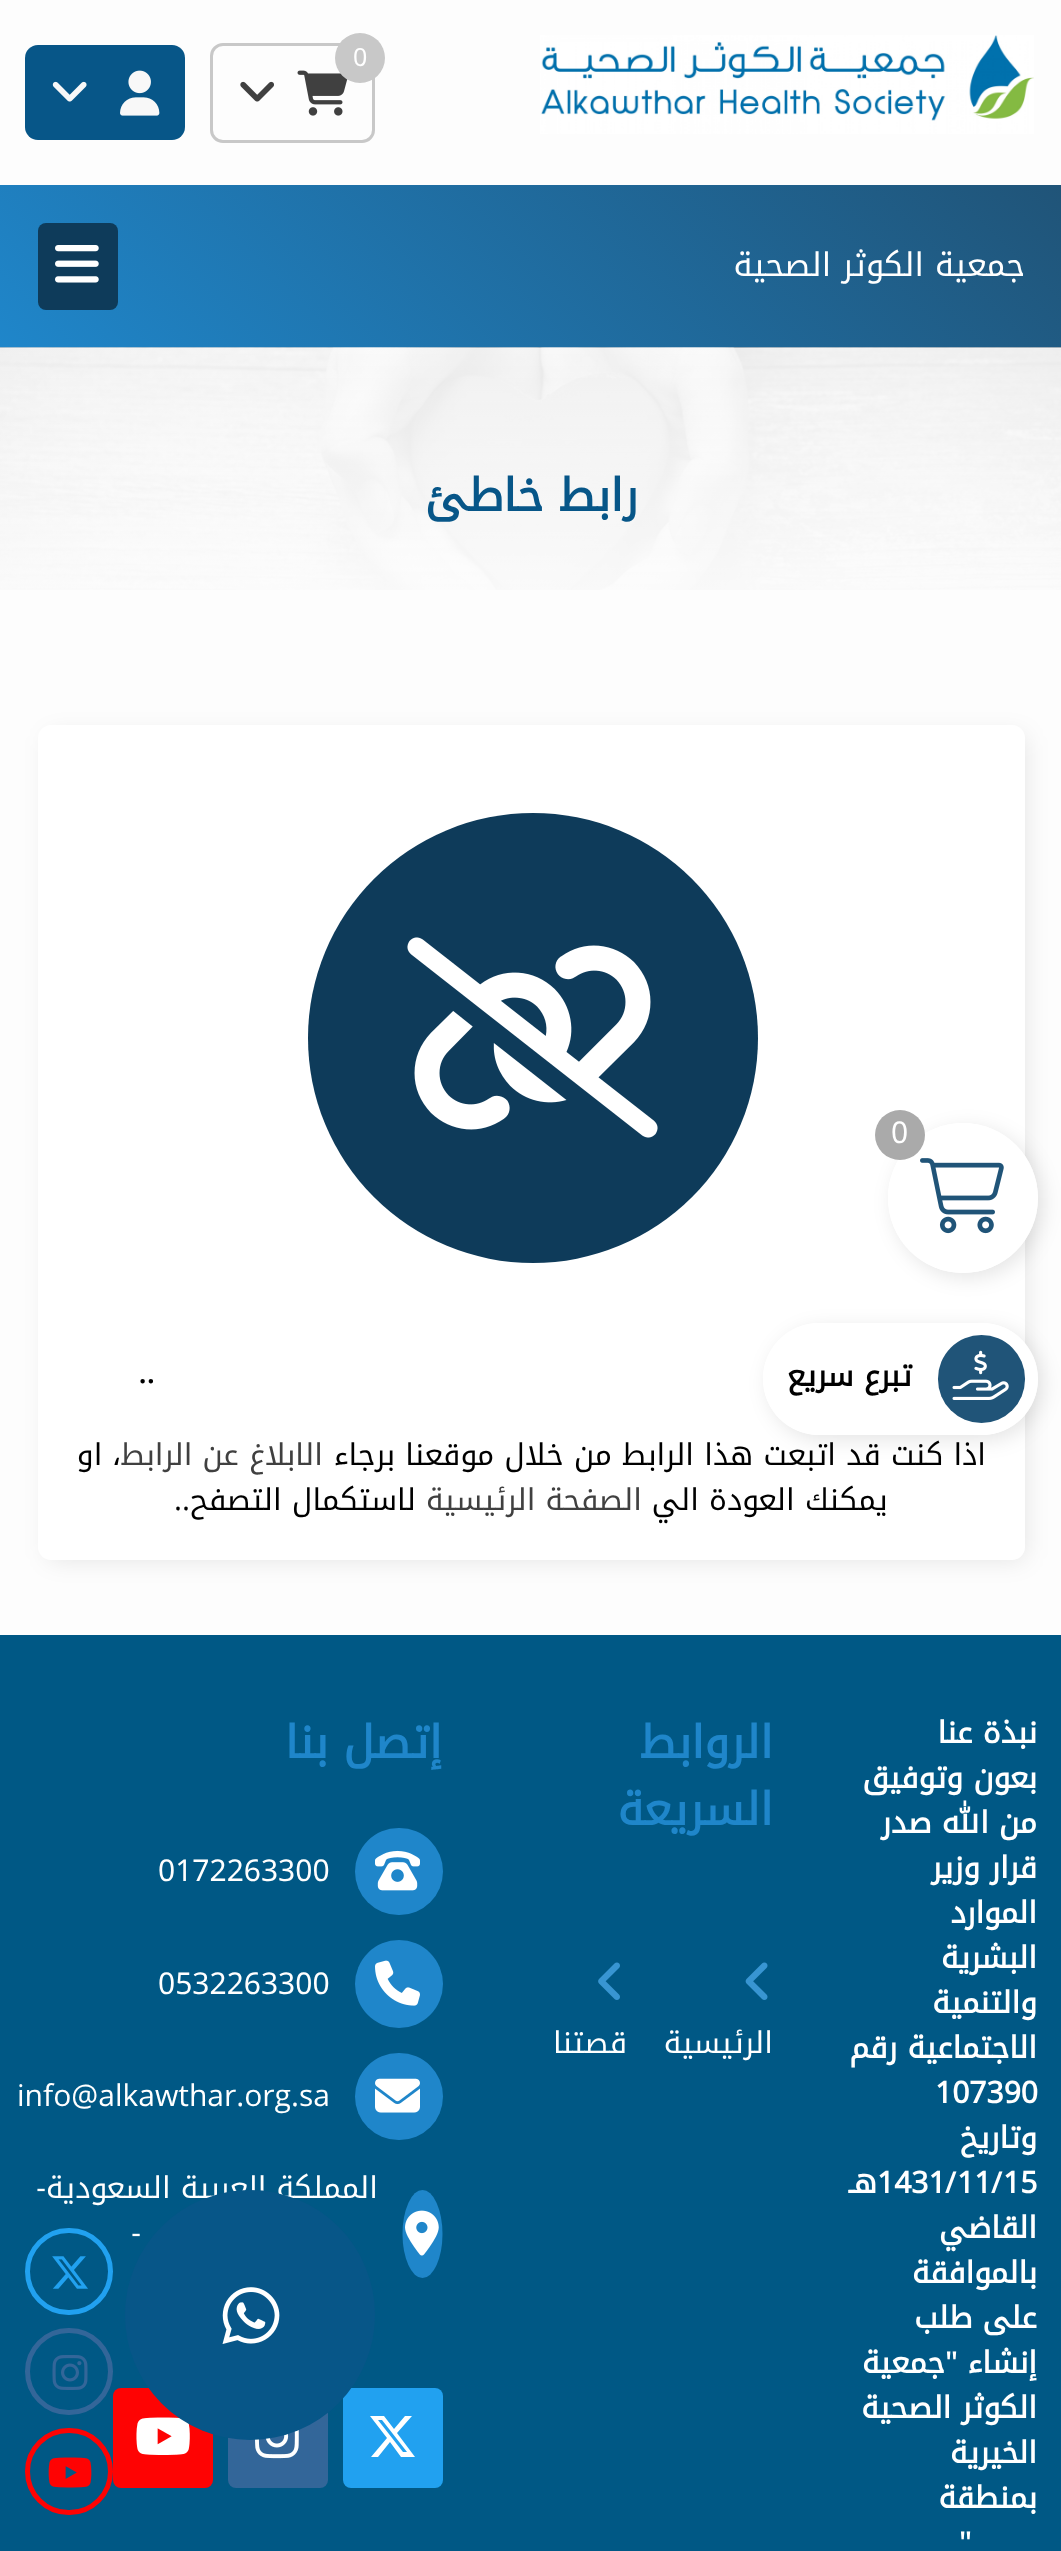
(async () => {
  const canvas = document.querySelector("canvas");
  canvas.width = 1061;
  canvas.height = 2551;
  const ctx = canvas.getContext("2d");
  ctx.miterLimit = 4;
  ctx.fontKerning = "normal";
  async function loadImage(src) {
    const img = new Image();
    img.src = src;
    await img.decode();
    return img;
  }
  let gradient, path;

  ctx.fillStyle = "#fdfdfd";
  ctx.fillRect(0, 0, 1061, 2551);
  ctx.drawImage(await loadImage("img/1.png"), 540, 35, 494, 99);
  ctx.beginPath();
  ctx.roundRect(211.5, 44.5, 162, 97, 11.5);
  ctx.strokeStyle = "#c8c8c8";
  ctx.lineWidth = 3;
  ctx.stroke();
  ctx.drawImage(await loadImage("img/2.png"), 297, 70, 51, 46);
  ctx.fillStyle = "#c8c8c8";
  ctx.beginPath();
  ctx.arc(360, 58, 25, 0, Math.PI * 2);
  ctx.fill();
  ctx.drawImage(await loadImage("img/3.png"), 240, 81, 34, 21);
  ctx.fillStyle = "#075688";
  ctx.beginPath();
  ctx.roundRect(25, 45, 160, 95, 13);
  ctx.fill();
  ctx.drawImage(await loadImage("img/4.png"), 120, 70, 40, 46);
  ctx.drawImage(await loadImage("img/5.png"), 52, 81, 35, 21);
  gradient = ctx.createLinearGradient(225, 573, 838, -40);
  gradient.addColorStop(0, "#1f86ca");
  gradient.addColorStop(1, "#205478");
  ctx.fillStyle = gradient;
  ctx.fillRect(0, 185, 1061, 163);
  ctx.fillStyle = "#0e3b5a";
  ctx.beginPath();
  ctx.roundRect(38, 223, 80, 87, 8);
  ctx.fill();
  ctx.drawImage(await loadImage("img/6.png"), 55, 245, 44, 38);
  ctx.drawImage(await loadImage("img/7.png"), 0, 347, 1061, 243);
  ctx.fillStyle = "rgba(0, 0, 0, 0.1)";
  ctx.filter = "blur(12.5px)";
  ctx.beginPath();
  ctx.roundRect(48, 735, 977, 825, 8);
  ctx.fill();
  ctx.filter = "none";
  ctx.fillStyle = "#ffffff";
  ctx.beginPath();
  ctx.roundRect(38, 725, 987, 835, 13);
  ctx.fill();
  ctx.save();
  path = new Path2D("M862 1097H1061V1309H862ZM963 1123C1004.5 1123 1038 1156.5 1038 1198C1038 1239.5 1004.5 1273 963 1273C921.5 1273 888 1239.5 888 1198C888 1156.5 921.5 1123 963 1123Z");
  ctx.clip(path, "evenodd");
  ctx.fillStyle = "rgba(0, 0, 0, 0.1)";
  ctx.filter = "blur(10px)";
  ctx.beginPath();
  ctx.roundRect(893, 1128, 150, 150, 75);
  ctx.fill();
  ctx.filter = "none";
  ctx.restore();
  ctx.beginPath();
  ctx.arc(963, 1198, 75, 0, Math.PI * 2);
  ctx.fill();
  ctx.drawImage(await loadImage("img/8.png"), 920, 1158, 84, 76);
  ctx.fillStyle = "#aaaaaa";
  ctx.beginPath();
  ctx.arc(900, 1135, 25, 0, Math.PI * 2);
  ctx.fill();
  ctx.save();
  path = new Path2D("M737 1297H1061V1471H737ZM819 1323H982C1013 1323 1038 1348 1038 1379C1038 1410 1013 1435 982 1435H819C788 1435 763 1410 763 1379C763 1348 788 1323 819 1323Z");
  ctx.clip(path, "evenodd");
  ctx.fillStyle = "rgba(0, 0, 0, 0.1)";
  ctx.filter = "blur(10px)";
  ctx.beginPath();
  ctx.roundRect(768, 1328, 275, 112, 56);
  ctx.fill();
  ctx.filter = "none";
  ctx.restore();
  ctx.fillStyle = "#ffffff";
  ctx.beginPath();
  ctx.roundRect(763, 1323, 275, 112, 56);
  ctx.fill();
  ctx.fillStyle = "#205478";
  ctx.beginPath();
  ctx.roundRect(938, 1335, 87, 88, 43.5);
  ctx.fill();
  ctx.drawImage(await loadImage("img/9.png"), 952, 1350, 57, 50);
  ctx.fillStyle = "#0e3b5a";
  ctx.beginPath();
  ctx.arc(533, 1038, 225, 0, Math.PI * 2);
  ctx.fill();
  ctx.drawImage(await loadImage("img/10.png"), 407, 937, 251, 201);
  ctx.fillStyle = "#005885";
  ctx.fillRect(0, 1635, 1061, 916);
  ctx.drawImage(await loadImage("img/11.png"), 745, 1962, 23, 38);
  ctx.drawImage(await loadImage("img/12.png"), 598, 1962, 22, 38);
  ctx.fillStyle = "#1f86ca";
  ctx.beginPath();
  ctx.roundRect(355, 1828, 88, 87, 43.5);
  ctx.fill();
  ctx.drawImage(await loadImage("img/13.png"), 375, 1850, 45, 41);
  ctx.beginPath();
  ctx.arc(399, 1984, 44, 0, Math.PI * 2);
  ctx.fill();
  ctx.drawImage(await loadImage("img/14.png"), 375, 1960, 45, 46);
  ctx.beginPath();
  ctx.roundRect(355, 2053, 88, 87, 43.5);
  ctx.fill();
  ctx.drawImage(await loadImage("img/15.png"), 375, 2078, 45, 35);
  ctx.beginPath();
  ctx.ellipse(422.5, 2234, 20, 44, 0, 0, Math.PI * 2);
  ctx.fill();
  ctx.drawImage(await loadImage("img/16.png"), 405, 2210, 34, 46);
  ctx.fillStyle = "#21a1f0";
  ctx.beginPath();
  ctx.roundRect(343, 2388, 100, 100, 8);
  ctx.fill();
  ctx.fillStyle = "#ffffff";
  path = new Path2D("M405 2416H412L397 2433L415 2457H401L390 2442L378 2457H371L387 2438L370 2416H384L394 2429ZM403 2452H407L382 2420H378Z");
  ctx.fill(path);
  ctx.fillStyle = "#336699";
  ctx.beginPath();
  ctx.roundRect(228, 2388, 100, 100, 8);
  ctx.fill();
  ctx.drawImage(await loadImage("img/17.png"), 255, 2430, 44, 29);
  ctx.fillStyle = "#fe0303";
  ctx.beginPath();
  ctx.roundRect(113, 2388, 100, 100, 8);
  ctx.fill();
  ctx.drawImage(await loadImage("img/18.png"), 136, 2417, 54, 38);
  ctx.beginPath();
  ctx.roundRect(27.5, 2230.5, 83, 82, 41);
  ctx.strokeStyle = "#21a1f0";
  ctx.lineWidth = 5;
  ctx.stroke();
  ctx.drawImage(await loadImage("img/20.png"), 52, 2256, 36, 33);
  ctx.beginPath();
  ctx.roundRect(27.5, 2330.5, 83, 82, 41);
  ctx.strokeStyle = "#336699";
  ctx.stroke();
  ctx.drawImage(await loadImage("img/21.png"), 52, 2355, 36, 35);
  ctx.beginPath();
  ctx.roundRect(27.5, 2430.5, 83, 82, 41);
  ctx.strokeStyle = "#fe0303";
  ctx.stroke();
  ctx.drawImage(await loadImage("img/22.png"), 48, 2457, 44, 31);
  ctx.font = "25px Noto Kufi Arabic";
  ctx.fillStyle = "#ffffff";
  ctx.fillText("0", 353, 66);
  ctx.direction = "rtl";
  ctx.font = "32.5px Noto Kufi Arabic";
  ctx.fillText("جمعية الكوثر الصحية", 1025, 276);
  ctx.font = "bold 45px Noto Kufi Arabic";
  ctx.fillStyle = "#075688";
  ctx.fillText("رابط خاطئ", 638, 511);
  ctx.direction = "ltr";
  ctx.font = "30px Noto Kufi Arabic";
  ctx.fillStyle = "#ffffff";
  ctx.fillText("0", 891, 1143);
  ctx.direction = "rtl";
  ctx.font = "bold 30px Noto Kufi Arabic";
  ctx.fillStyle = "#000000";
  ctx.fillText("تبرع سريع", 912, 1386);
  ctx.font = "600 30px Open Sans";
  ctx.fillText("..", 155, 1383);
  ctx.font = "30px Noto Kufi Arabic";
  ctx.fillText("اذا كنت قد اتبعت هذا الرابط من خلال موقعنا برجاء", 986, 1465);
  ctx.fillStyle = "#404040";
  ctx.fillText("الابلاغ عن الرابط", 323, 1465);
  ctx.fillStyle = "#000000";
  ctx.fillText("، او", 121, 1465);
  ctx.fillText("يمكنك العودة الي", 888, 1510);
  ctx.fillStyle = "#404040";
  ctx.fillText("الصفحة الرئيسية", 642, 1510);
  ctx.fillStyle = "#000000";
  ctx.fillText("لاستكمال التصفح", 416, 1510);
  ctx.font = "30px Open Sans";
  ctx.fillText("..", 190, 1510);
  ctx.font = "bold 30px Noto Kufi Arabic";
  ctx.fillStyle = "#ffffff";
  for (const [text, x, y] of [
    ["نبذة عنا", 1037, 1743],
    ["بعون وتوفيق", 1037, 1788],
    ["من الله صدر", 1037, 1833],
    ["قرار وزير", 1037, 1878],
    ["الموارد", 1037, 1923],
    ["البشرية", 1037, 1968],
    ["والتنمية", 1037, 2013],
    ["الاجتماعية رقم", 1037, 2058],
  ]) {
    ctx.fillText(text, x, y);
  }
  ctx.direction = "ltr";
  ctx.fillText("107390", 935, 2103);
  ctx.direction = "rtl";
  ctx.fillText("وتاريخ", 1037, 2148);
  ctx.direction = "ltr";
  ctx.fillText("15", 1003, 2193);
  ctx.font = "600 30px Open Sans";
  ctx.fillText("/", 991, 2193);
  ctx.font = "bold 30px Noto Kufi Arabic";
  ctx.fillText("11", 957, 2193);
  ctx.font = "600 30px Open Sans";
  ctx.fillText("/", 945, 2193);
  ctx.font = "bold 30px Noto Kufi Arabic";
  ctx.fillText("1431", 877, 2193);
  ctx.direction = "rtl";
  for (const [text, x, y] of [
    ["هـ", 877, 2193],
    ["القاضي", 1037, 2238],
    ["بالموافقة", 1037, 2283],
    ["على طلب", 1037, 2328],
    ["إنشاء", 1037, 2373],
  ]) {
    ctx.fillText(text, x, y);
  }
  ctx.font = "600 30px Open Sans";
  ctx.fillText("\"", 958, 2373);
  ctx.font = "bold 30px Noto Kufi Arabic";
  for (const [text, x, y] of [
    ["جمعية", 945, 2373],
    ["الكوثر الصحية", 1037, 2418],
    ["الخيرية", 1037, 2463],
    ["بمنطقة", 1037, 2508],
  ]) {
    ctx.fillText(text, x, y);
  }
  ctx.font = "600 30px Open Sans";
  ctx.fillText("\"", 972, 2553);
  ctx.font = "bold 45px Noto Kufi Arabic";
  ctx.fillStyle = "#1f86ca";
  ctx.fillText("الروابط", 773, 1758);
  ctx.fillText("السريعة", 773, 1825);
  ctx.font = "30px Noto Kufi Arabic";
  ctx.fillStyle = "#ffffff";
  ctx.fillText("الرئيسية", 773, 2053);
  ctx.fillText("قصتنا", 627, 2053);
  ctx.font = "bold 45px Noto Kufi Arabic";
  ctx.fillStyle = "#1f86ca";
  ctx.fillText("إتصل بنا", 442, 1758);
  ctx.direction = "ltr";
  ctx.font = "30px Noto Kufi Arabic";
  ctx.fillStyle = "#ffffff";
  ctx.fillText("0172263300", 158, 1881);
  ctx.fillText("0532263300", 158, 1994);
  ctx.font = "30px Open Sans";
  ctx.fillText("info@alkawthar.org.sa", 17, 2106);
  ctx.direction = "rtl";
  ctx.font = "30px Noto Kufi Arabic";
  ctx.fillText("المملكة العربية السعودية", 378, 2198);
  ctx.font = "30px Open Sans";
  ctx.fillText("-", 46, 2198);
  ctx.fillText("-", 141, 2243);
  ctx.fillStyle = "#075688";
  ctx.beginPath();
  ctx.arc(250, 2315, 125, 0, Math.PI * 2);
  ctx.fill();
  ctx.drawImage(await loadImage("img/19.png"), 222, 2287, 58, 57);
})();
